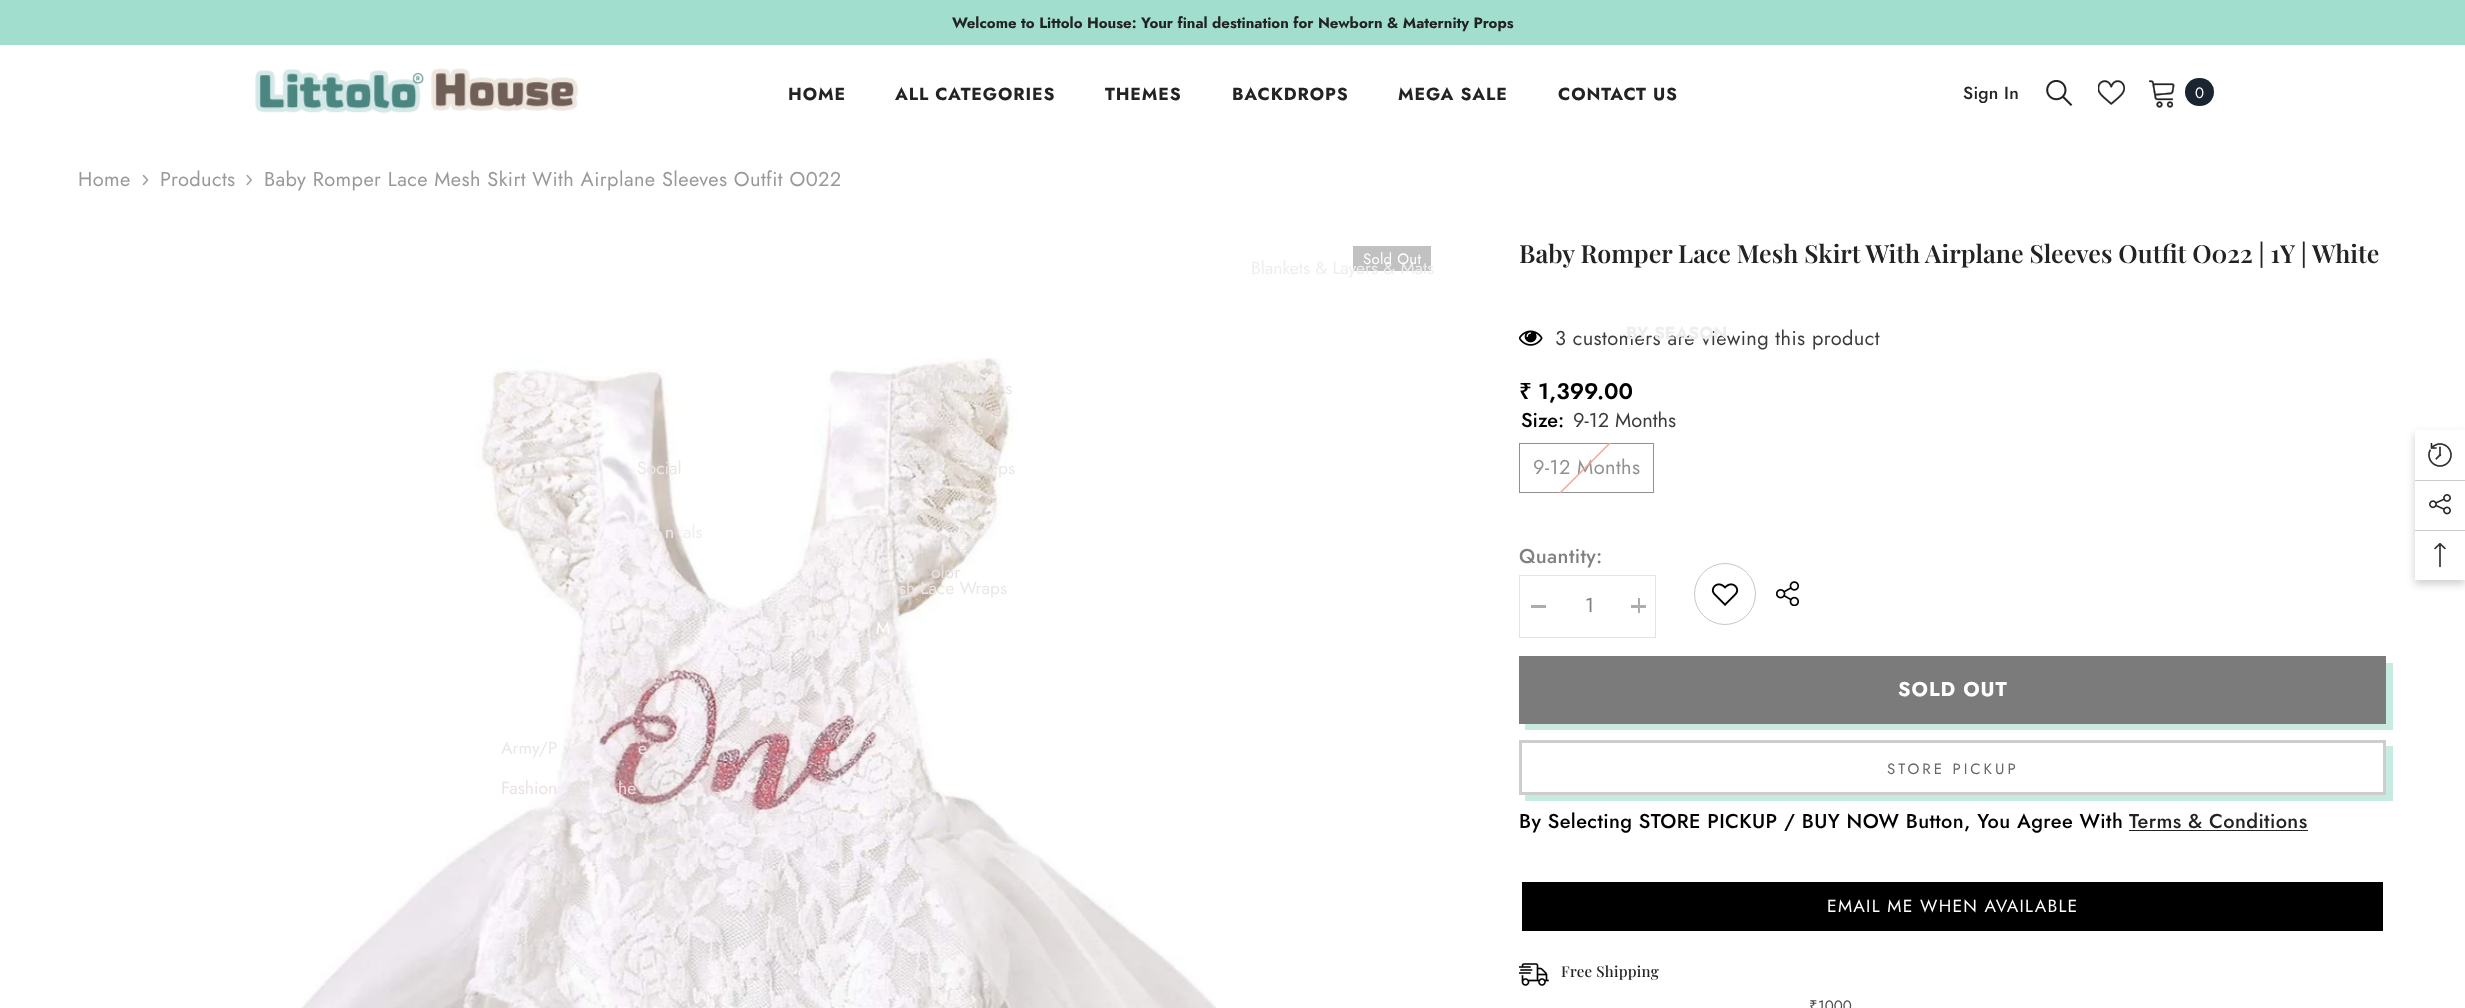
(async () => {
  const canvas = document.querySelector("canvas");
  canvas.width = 2465;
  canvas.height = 1008;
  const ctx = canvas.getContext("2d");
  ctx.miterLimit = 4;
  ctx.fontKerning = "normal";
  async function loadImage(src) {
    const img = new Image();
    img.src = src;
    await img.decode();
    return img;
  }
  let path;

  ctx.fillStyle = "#ffffff";
  ctx.fillRect(0, 0, 2465, 1008);
  ctx.fillStyle = "#a1decd";
  ctx.fillRect(0, 0, 2465, 45);
  ctx.drawImage(await loadImage("img/1.png"), 255, 68, 324, 46);
  ctx.drawImage(await loadImage("img/2.png"), 2046, 79, 27, 27);
  ctx.drawImage(await loadImage("img/3.png"), 2098, 80, 27, 25);
  ctx.drawImage(await loadImage("img/4.png"), 2148, 80, 27, 28);
  ctx.fillStyle = "#1a2531";
  ctx.beginPath();
  ctx.roundRect(2185, 78, 29, 28, 14);
  ctx.fill();
  ctx.drawImage(await loadImage("img/5.png"), 142, 174, 7, 12);
  ctx.drawImage(await loadImage("img/6.png"), 246, 174, 6, 12);
  ctx.fillStyle = "#c1c1c1";
  ctx.fillRect(1353, 246, 78, 25);
  ctx.drawImage(await loadImage("img/7.png"), 301, 357, 916, 651);
  ctx.drawImage(await loadImage("img/8.png"), 1519, 330, 24, 16);
  ctx.strokeStyle = "#919191";
  ctx.strokeRect(1519.5, 443.5, 134, 49);
  ctx.strokeStyle = "#e3e3e3";
  ctx.strokeRect(1519.5, 575.5, 136, 62);
  for (const [x, y, w, h, color] of [
    [1531, 605, 15, 3, "#adadad"],
    [1631, 605, 15, 3, "#adadad"],
    [1638, 598, 2, 15, "#adadad"],
  ]) {
    ctx.fillStyle = color;
    ctx.fillRect(x, y, w, h);
  }
  ctx.beginPath();
  ctx.arc(1725, 594, 30.5, 0, Math.PI * 2);
  ctx.strokeStyle = "#c7c7c7";
  ctx.stroke();
  ctx.drawImage(await loadImage("img/9.png"), 1711, 583, 28, 23);
  ctx.drawImage(await loadImage("img/10.png"), 1775, 581, 25, 25);
  ctx.fillStyle = "#c7ebe1";
  path = new Path2D("M1525 724V730H2393V663H2386V724Z");
  ctx.fill(path);
  ctx.fillStyle = "#7b7b7b";
  ctx.fillRect(1519, 656, 867, 68);
  ctx.fillStyle = "#c7ebe1";
  path = new Path2D("M1525 795V801H2393V746H2386V795Z");
  ctx.fill(path);
  ctx.strokeStyle = "#cdcdcd";
  ctx.lineWidth = 3;
  ctx.strokeRect(1520.5, 741.5, 864, 52);
  ctx.fillStyle = "#232323";
  ctx.fillRect(2129, 830, 179, 1);
  ctx.fillStyle = "#000000";
  ctx.beginPath();
  ctx.roundRect(1520.5, 880.5, 864, 52, 1);
  ctx.fill();
  ctx.strokeStyle = "#ffffff";
  ctx.stroke();
  ctx.drawImage(await loadImage("img/11.png"), 1519, 963, 30, 23);
  ctx.save();
  path = new Path2D("M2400 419H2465V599H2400ZM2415 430H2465V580H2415Z");
  ctx.clip(path, "evenodd");
  ctx.fillStyle = "rgba(0, 0, 0, 0.2)";
  ctx.filter = "blur(4.5px)";
  ctx.beginPath();
  ctx.rect(2415, 434, 50, 150);
  ctx.fill();
  ctx.filter = "none";
  ctx.restore();
  ctx.drawImage(await loadImage("img/12.png"), 2428, 443, 24, 24);
  ctx.fillStyle = "#cccccc";
  ctx.fillRect(2415, 480, 50, 1);
  ctx.drawImage(await loadImage("img/13.png"), 2429, 494, 22, 21);
  ctx.fillRect(2415, 530, 50, 1);
  ctx.drawImage(await loadImage("img/14.png"), 2434, 543, 12, 25);
  ctx.font = "bold 15px Jost";
  ctx.fillStyle = "#232323";
  ctx.fillText("Welcome to Littolo House: Your final destination for Newborn & Maternity Props", 952, 28);
  ctx.letterSpacing = "0.9px";
  ctx.font = "bold 17.5px Jost";
  ctx.fillText("THEMES", 1105, 100);
  ctx.letterSpacing = "0px";
  ctx.font = "17.5px Jost";
  ctx.fillStyle = "#ebe7e5";
  ctx.fillText("Army/P", 501, 754);
  ctx.fillText("e", 638, 754);
  ctx.fillStyle = "#ede1e4";
  ctx.fillText("Fashion", 501, 794);
  ctx.fillText("he", 618, 794);
  ctx.letterSpacing = "0.9px";
  ctx.font = "bold 17.5px Jost";
  ctx.fillStyle = "#232323";
  ctx.fillText("BACKDROPS", 1232, 100);
  ctx.letterSpacing = "0px";
  ctx.font = "17.5px Jost";
  ctx.fillStyle = "#ebe7e5";
  ctx.fillText("Social", 637, 474);
  ctx.fillStyle = "#e7e1de";
  ctx.fillText("olor", 931, 578);
  ctx.letterSpacing = "0.9px";
  ctx.font = "bold 17.5px Jost";
  ctx.fillStyle = "#232323";
  ctx.fillText("ALL CATEGORIES", 895, 100);
  ctx.letterSpacing = "0px";
  ctx.font = "17.5px Jost";
  ctx.fillStyle = "#eeeeee";
  for (const [text, x, y] of [
    ["Blankets & Layers & Mats", 1251, 274],
    ["n", 665, 538],
    ["als", 683, 538],
  ]) {
    ctx.fillText(text, x, y);
  }
  ctx.fillStyle = "#ebe7e5";
  ctx.fillText("s", 1005, 394);
  ctx.fillStyle = "#e7e1de";
  ctx.fillText("s", 976, 434);
  ctx.fillStyle = "#ebe7e5";
  ctx.fillText("ps", 998, 474);
  ctx.fillText("esh Lace Wraps", 890, 594);
  ctx.fillStyle = "#ffffff";
  ctx.fillText("M", 876, 634);
  ctx.letterSpacing = "0.9px";
  ctx.font = "bold 17.5px Jost";
  ctx.fillStyle = "#232323";
  for (const [text, x, y] of [
    ["HOME", 788, 100],
    ["MEGA SALE", 1398, 100],
    ["CONTACT US", 1558, 100],
  ]) {
    ctx.fillText(text, x, y);
  }
  ctx.letterSpacing = "0.25px";
  ctx.font = "500 17.5px Jost";
  ctx.fillText("Sign In", 1963, 99);
  ctx.letterSpacing = "0px";
  ctx.font = "15px Jost";
  ctx.fillStyle = "#ffffff";
  ctx.fillText("0", 2195, 98);
  ctx.letterSpacing = "0.4px";
  ctx.font = "20px Jost";
  ctx.fillStyle = "#999999";
  for (const [text, x, y] of [
    ["Home", 78, 186],
    ["Products", 160, 186],
    ["Baby Romper Lace Mesh Skirt With Airplane Sleeves Outfit O022", 264, 186],
  ]) {
    ctx.fillText(text, x, y);
  }
  ctx.letterSpacing = "0.25px";
  ctx.font = "15px Jost";
  ctx.fillStyle = "#ffffff";
  ctx.fillText("Sold Out", 1363, 264);
  ctx.letterSpacing = "0px";
  ctx.font = "600 25px Playfair Display";
  ctx.fillStyle = "#232323";
  ctx.fillText("Baby Romper Lace Mesh Skirt With Airplane Sleeves Outfit O022 | 1Y | White", 1519, 263);
  ctx.letterSpacing = "0.4px";
  ctx.font = "20px Jost";
  ctx.fillStyle = "#3c3c3c";
  ctx.fillText("3 customers are viewing this product", 1555, 345);
  ctx.letterSpacing = "0px";
  ctx.font = "bold 17.5px Jost";
  ctx.fillStyle = "#eeeeee";
  ctx.fillText("BY SEASON", 1626, 339);
  ctx.font = "600 22.5px Noto Sans";
  ctx.fillStyle = "#000000";
  ctx.fillText("₹", 1519, 399);
  ctx.font = "600 22.5px Jost";
  ctx.fillText("1,399.00", 1538, 399);
  ctx.font = "500 20px Jost";
  ctx.fillText("Size:", 1521, 427);
  ctx.font = "20px Jost";
  ctx.fillStyle = "#3c3c3c";
  ctx.fillText("9-12 Months", 1573, 427);
  ctx.letterSpacing = "0.4px";
  ctx.fillStyle = "#919191";
  ctx.fillText("9-12 Months", 1533, 474);
  ctx.save();
  ctx.beginPath();
  ctx.rect(1519, 443, 135, 50);
  ctx.clip();
  ctx.fillStyle = "#f5a193";
  path = new Path2D("M1529 523L1642 410L1643 411L1530 524Z");
  ctx.fill(path);
  ctx.restore();
  ctx.font = "500 20px Jost";
  ctx.fillStyle = "#808080";
  ctx.fillText("Quantity:", 1519, 563);
  ctx.font = "20px Jost";
  ctx.fillText("1", 1585, 612);
  ctx.letterSpacing = "1px";
  ctx.font = "bold 20px Jost";
  ctx.fillStyle = "#ffffff";
  ctx.fillText("SOLD OUT", 1898, 696);
  ctx.letterSpacing = "3px";
  ctx.font = "15px Jost";
  ctx.fillStyle = "#666666";
  ctx.fillText("STORE PICKUP", 1887, 774);
  ctx.letterSpacing = "0.4px";
  ctx.font = "500 20px Jost";
  ctx.fillStyle = "#000000";
  ctx.fillText("By Selecting STORE PICKUP / BUY NOW Button, You Agree With", 1519, 828);
  ctx.fillStyle = "#232323";
  ctx.fillText("Terms & Conditions", 2129, 828);
  ctx.letterSpacing = "1.25px";
  ctx.font = "17.5px Jost";
  ctx.fillStyle = "#ffffff";
  ctx.fillText("EMAIL ME WHEN AVAILABLE", 1827, 912);
  ctx.letterSpacing = "0.25px";
  ctx.font = "500 15px Playfair Display";
  ctx.fillStyle = "#232323";
  ctx.fillText("Free Shipping", 1561, 977);
  ctx.letterSpacing = "0px";
  ctx.font = "15px Noto Sans";
  ctx.fillStyle = "#4d4d4d";
  ctx.fillText("₹", 1809, 1011);
  ctx.font = "15px Jost";
  ctx.fillText("1000", 1818, 1011);
})();
